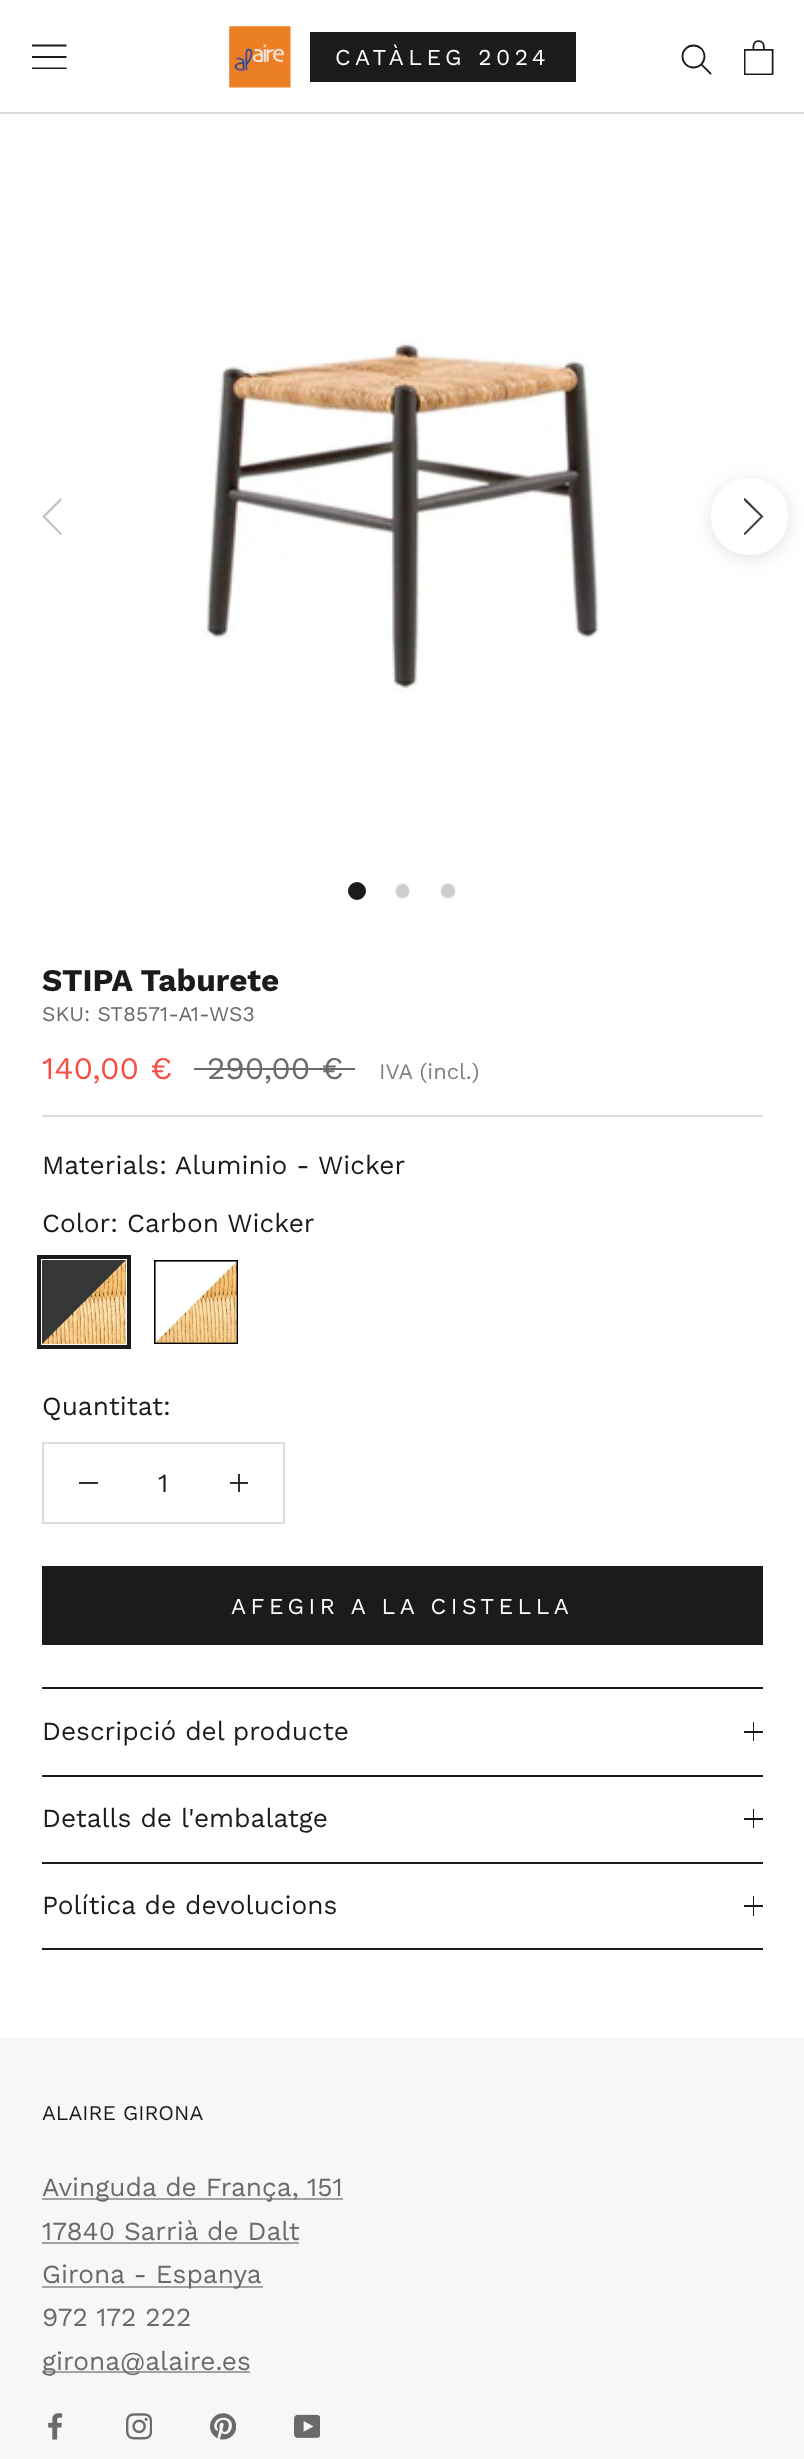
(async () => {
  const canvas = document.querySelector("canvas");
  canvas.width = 804;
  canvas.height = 2459;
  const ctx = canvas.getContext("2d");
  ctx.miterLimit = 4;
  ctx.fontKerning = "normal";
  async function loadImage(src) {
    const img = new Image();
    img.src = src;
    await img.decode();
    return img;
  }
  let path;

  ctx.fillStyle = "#ffffff";
  ctx.fillRect(0, 0, 804, 2459);
  ctx.fillStyle = "#333232";
  ctx.fillRect(230, 1482, 18, 2);
  ctx.fillStyle = "#dddddd";
  ctx.fillRect(0, 112, 804, 2);
  ctx.save();
  ctx.beginPath();
  ctx.rect(32, 44, 35, 26);
  ctx.clip();
  ctx.fillStyle = "#1c1b1b";
  path = new Path2D("M31.5 69V67.5H66.5V69ZM31.5 56H66.5V58H31.5ZM31.5 44.5H66.5V46.5H31.5Z");
  ctx.fill(path);
  ctx.restore();
  ctx.drawImage(await loadImage("img/1.png"), 229, 26, 62, 62);
  ctx.strokeStyle = "#1c1b1b";
  ctx.lineWidth = 2;
  ctx.strokeRect(311, 33, 264, 48);
  ctx.fillStyle = "#1c1b1b";
  ctx.fillRect(312, 34, 262, 46);
  path = new Path2D("M710.5 73.5L701.5 64.5");
  ctx.lineWidth = 1.8;
  ctx.lineCap = "square";
  ctx.stroke(path);
  ctx.beginPath();
  ctx.arc(693.5, 56.5, 11, 0, Math.PI * 2);
  ctx.stroke();
  ctx.drawImage(await loadImage("img/2.png"), 744, 40, 30, 35);
  ctx.fillStyle = "#c2c2c2";
  path = new Path2D("M42.5 516.5L61 535V533L45 516.5L61 500.5V498Z");
  ctx.fill(path);
  ctx.strokeStyle = "#c2c2c2";
  ctx.lineWidth = 0.7;
  ctx.lineCap = "butt";
  ctx.stroke(path);
  ctx.drawImage(await loadImage("img/3.png"), 204, 339, 397, 354);
  ctx.save();
  path = new Path2D("M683 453H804V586H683ZM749.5 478C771 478 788 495 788 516.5C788 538 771 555 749.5 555C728 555 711 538 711 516.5C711 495 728 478 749.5 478Z");
  ctx.clip(path, "evenodd");
  ctx.fillStyle = "rgba(54, 54, 54, 0.15)";
  ctx.filter = "blur(9px)";
  ctx.beginPath();
  ctx.roundRect(711, 481, 77, 77, 38.5);
  ctx.fill();
  ctx.filter = "none";
  ctx.restore();
  ctx.fillStyle = "rgba(255, 255, 255, 0.75)";
  ctx.beginPath();
  ctx.arc(749.5, 516.5, 38.5, 0, Math.PI * 2);
  ctx.fill();
  ctx.fillStyle = "#333333";
  path = new Path2D("M763 516.5L744.5 498V500.5L761 516.5L744.5 533V535Z");
  ctx.fill(path);
  ctx.strokeStyle = "#333333";
  ctx.stroke(path);
  ctx.fillStyle = "#1c1b1b";
  ctx.beginPath();
  ctx.arc(357, 891, 8, 0, Math.PI * 2);
  ctx.fill();
  ctx.strokeStyle = "#1c1b1b";
  ctx.lineWidth = 2;
  ctx.stroke();
  ctx.fillStyle = "#cccccc";
  ctx.beginPath();
  ctx.roundRect(395, 883, 15, 16, 7.5);
  ctx.fill();
  ctx.strokeStyle = "#f7f7f7";
  ctx.stroke();
  ctx.beginPath();
  ctx.arc(448, 891, 8, 0, Math.PI * 2);
  ctx.fill();
  ctx.stroke();
  ctx.fillStyle = "#dddddd";
  ctx.fillRect(42, 1115, 721, 2);
  ctx.fillStyle = "#6a6a6a";
  ctx.fillRect(194, 1068, 161, 2);
  ctx.drawImage(await loadImage("img/4.png"), 42, 1260, 84, 84);
  ctx.strokeStyle = "#1c1b1b";
  ctx.lineWidth = 4;
  ctx.strokeRect(39, 1257, 90, 90);
  ctx.drawImage(await loadImage("img/5.png"), 154, 1260, 84, 84);
  ctx.strokeStyle = "#dddddd";
  ctx.lineWidth = 2;
  ctx.strokeRect(43, 1443, 241, 80);
  for (const [x, y, w, h, color] of [
    [79, 1482, 19, 2, "#333232"],
    [238, 1474, 2, 18, "#333232"],
    [238, 1482, 2, 2, "#1e1d1d"],
  ]) {
    ctx.fillStyle = color;
    ctx.fillRect(x, y, w, h);
  }
  ctx.strokeStyle = "#1c1b1b";
  ctx.strokeRect(43, 1567, 719, 77);
  for (const [x, y, w, h, color] of [
    [44, 1568, 717, 75, "#1c1b1b"],
    [42, 1687, 721, 2, "#1c1b1b"],
    [42, 1775, 721, 2, "#1c1b1b"],
    [753, 1722, 1, 19, "#1c1b1b"],
    [744, 1731, 19, 2, "#1c1b1b"],
    [42, 1862, 721, 2, "#1c1b1b"],
    [753, 1809, 1, 19, "#1c1b1b"],
    [744, 1818, 19, 2, "#1c1b1b"],
    [42, 1948, 721, 2, "#1c1b1b"],
    [753, 1896, 1, 20, "#1c1b1b"],
    [744, 1905, 19, 2, "#1c1b1b"],
    [0, 2037, 804, 422, "#f7f7f7"],
    [42, 2198, 301, 2, "#a2a2a2"],
    [42, 2242, 257, 2, "#a2a2a2"],
    [42, 2286, 221, 2, "#a2a2a2"],
    [42, 2371, 208, 2, "#a2a2a2"],
  ]) {
    ctx.fillStyle = color;
    ctx.fillRect(x, y, w, h);
  }
  ctx.drawImage(await loadImage("img/6.png"), 48, 2413, 15, 27);
  ctx.drawImage(await loadImage("img/7.png"), 126, 2413, 26, 27);
  ctx.drawImage(await loadImage("img/8.png"), 210, 2413, 26, 27);
  ctx.drawImage(await loadImage("img/9.png"), 294, 2414, 26, 24);
  ctx.letterSpacing = "4.5px";
  ctx.font = "22.75px Work Sans";
  ctx.fillStyle = "#ffffff";
  ctx.fillText("CATÀLEG 2024", 335, 65);
  ctx.letterSpacing = "0px";
  ctx.font = "bold 31.5px Work Sans";
  ctx.fillStyle = "#1c1b1b";
  ctx.fillText("STIPA Taburete", 42, 991);
  ctx.font = "21px Work Sans";
  ctx.fillStyle = "#6a6a6a";
  ctx.fillText("SKU: ST8571-A1-WS3", 42, 1021);
  ctx.font = "31.5px Work Sans";
  ctx.fillStyle = "#f94c43";
  ctx.fillText("140,00 €", 42, 1079);
  ctx.fillStyle = "#6a6a6a";
  ctx.fillText("290,00 €", 207, 1079);
  ctx.font = "22px Work Sans";
  ctx.fillStyle = "#808080";
  ctx.fillText("IVA (incl.)", 379, 1079);
  ctx.font = "26.25px Work Sans";
  ctx.fillStyle = "#1c1b1b";
  for (const [text, x, y] of [
    ["Materials: Aluminio - Wicker", 42, 1174],
    ["Color: Carbon Wicker", 42, 1232],
    ["Quantitat:", 42, 1415],
    ["1", 158, 1492],
  ]) {
    ctx.fillText(text, x, y);
  }
  ctx.letterSpacing = "4.5px";
  ctx.font = "22.75px Work Sans";
  ctx.fillStyle = "#ffffff";
  ctx.fillText("AFEGIR A LA CISTELLA", 231, 1614);
  ctx.letterSpacing = "0px";
  ctx.font = "26.25px Work Sans";
  ctx.fillStyle = "#1c1b1b";
  for (const [text, x, y] of [
    ["Descripció del producte", 42, 1740],
    ["Detalls de l'embalatge", 42, 1827],
    ["Política de devolucions", 42, 1914],
  ]) {
    ctx.fillText(text, x, y);
  }
  ctx.font = "21px Work Sans";
  ctx.fillText("ALAIRE GIRONA", 42, 2120);
  ctx.font = "26.25px Work Sans";
  ctx.fillStyle = "#6a6a6a";
  for (const [text, x, y] of [
    ["Avinguda de França, 151", 42, 2196],
    ["17840 Sarrià de Dalt", 42, 2240],
    ["Girona - Espanya", 42, 2283],
    ["972 172 222", 42, 2326],
    ["girona@alaire.es", 42, 2370],
  ]) {
    ctx.fillText(text, x, y);
  }
})();
